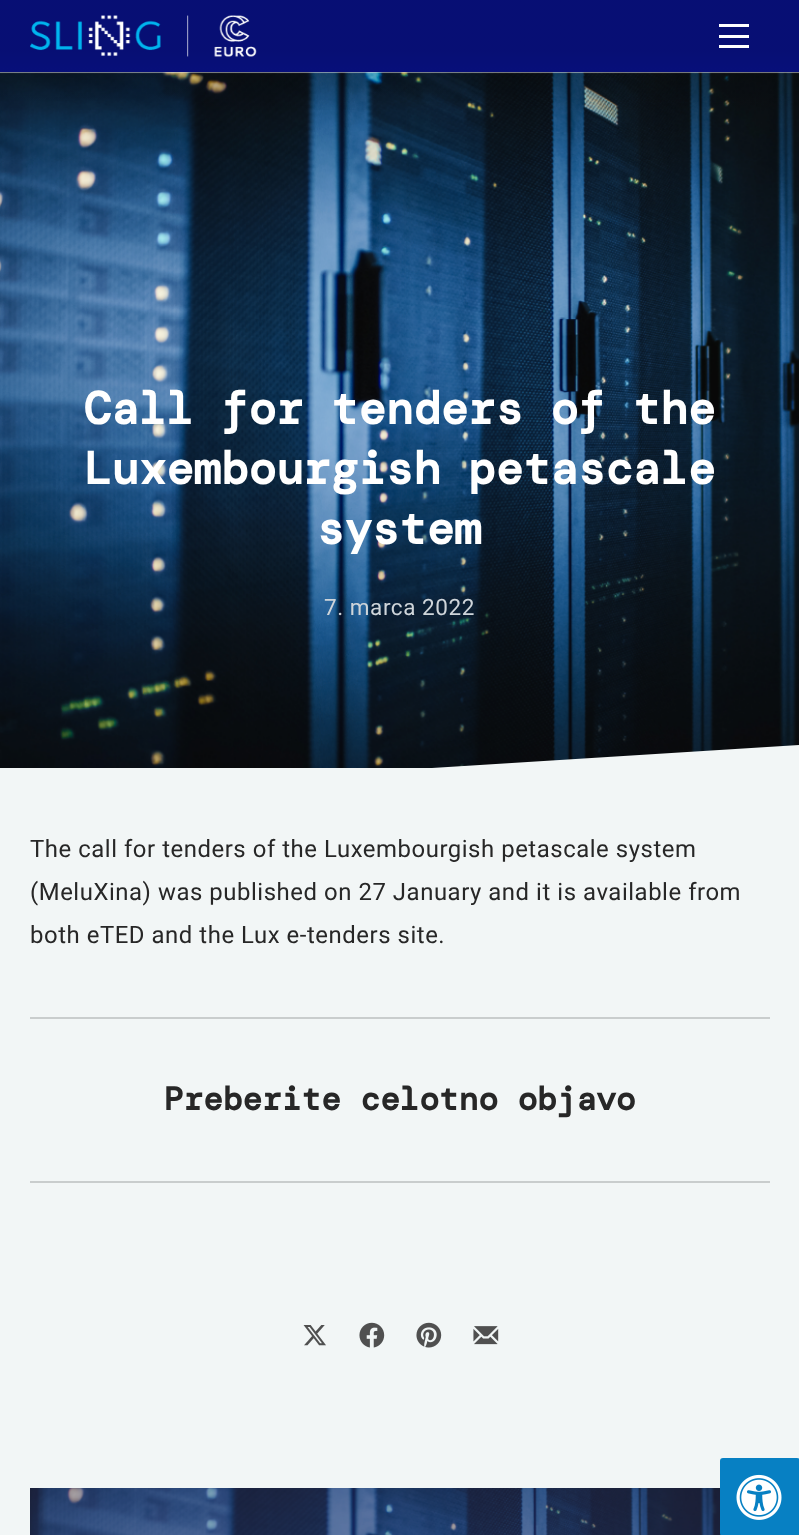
(async () => {
  const canvas = document.querySelector("canvas");
  canvas.width = 799;
  canvas.height = 1535;
  const ctx = canvas.getContext("2d");
  ctx.miterLimit = 4;
  ctx.fontKerning = "normal";
  async function loadImage(src) {
    const img = new Image();
    img.src = src;
    await img.decode();
    return img;
  }
  let gradient, path;

  ctx.fillStyle = "#f2f6f6";
  ctx.fillRect(0, 0, 799, 1535);
  ctx.fillStyle = "#081188";
  ctx.fillRect(0, 0, 799, 72);
  ctx.drawImage(await loadImage("img/2.png"), 0, 72, 799, 696);
  gradient = ctx.createLinearGradient(400, -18, 400, 120);
  gradient.addColorStop(0, "rgba(0, 0, 0, 0.15)");
  gradient.addColorStop(0.5, "rgba(0, 0, 0, 0.15)");
  gradient.addColorStop(1, "rgba(0, 0, 0, 0)");
  ctx.fillStyle = gradient;
  ctx.fillRect(0, 0, 799, 110);
  ctx.drawImage(await loadImage("img/1.png"), 30, 15, 227, 42);
  for (const [x, y, w, h, color] of [
    [719, 45, 30, 3, "#ffffff"],
    [719, 35, 30, 3, "#ffffff"],
    [719, 24, 30, 3, "#ffffff"],
  ]) {
    ctx.fillStyle = color;
    ctx.fillRect(x, y, w, h);
  }
  ctx.fillStyle = "#f2f6f6";
  path = new Path2D("M400 770H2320V650Z");
  ctx.fill(path);
  ctx.fillStyle = "#c9cdcd";
  ctx.fillRect(30, 1017, 740, 2);
  ctx.fillRect(30, 1181, 740, 2);
  ctx.drawImage(await loadImage("img/3.png"), 303, 1325, 23, 21);
  ctx.drawImage(await loadImage("img/4.png"), 359, 1322, 26, 26);
  ctx.drawImage(await loadImage("img/5.png"), 416, 1322, 26, 26);
  ctx.drawImage(await loadImage("img/6.png"), 473, 1326, 26, 19);
  ctx.drawImage(await loadImage("img/7.png"), 30, 1488, 691, 47);
  ctx.fillStyle = "#0780c3";
  ctx.beginPath();
  ctx.roundRect(720, 1458, 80, 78, 3);
  ctx.fill();
  ctx.drawImage(await loadImage("img/8.png"), 736, 1474, 46, 46);
  ctx.font = "bold 45.75px DM Mono";
  ctx.fillStyle = "#ffffff";
  for (const [text, x, y] of [
    ["Call for tenders of the", 84, 424],
    ["Luxembourgish petascale", 84, 484],
    ["system", 317, 544],
  ]) {
    ctx.fillText(text, x, y);
  }
  ctx.letterSpacing = "0.55px";
  ctx.font = "22.5px Roboto";
  ctx.fillStyle = "#cfd5da";
  ctx.fillText("7. marca 2022", 324, 615);
  ctx.font = "23.9px Roboto";
  ctx.fillStyle = "#272727";
  for (const [text, x, y] of [
    ["The call for tenders of the Luxembourgish petascale system", 30, 857],
    ["(MeluXina) was published on 27 January and it is available from", 30, 900],
    ["both eTED and the Lux e-tenders site.", 30, 943],
  ]) {
    ctx.fillText(text, x, y);
  }
  ctx.letterSpacing = "0px";
  ctx.font = "bold 32.75px DM Mono";
  ctx.fillText("Preberite celotno objavo", 164, 1110);
})();
